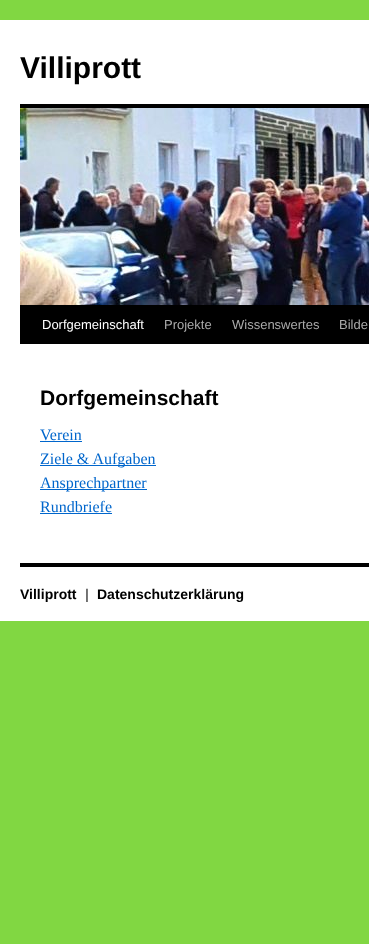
(async () => {
  const canvas = document.querySelector("canvas");
  canvas.width = 369;
  canvas.height = 944;
  const ctx = canvas.getContext("2d");
  ctx.miterLimit = 4;
  ctx.fontKerning = "normal";
  async function loadImage(src) {
    const img = new Image();
    img.src = src;
    await img.decode();
    return img;
  }

  ctx.fillStyle = "#81d742";
  ctx.fillRect(0, 0, 369, 944);
  for (const [x, y, w, h, color] of [
    [0, 20, 369, 601, "#ffffff"],
    [20, 104, 349, 4, "#000000"],
    [20, 305, 349, 39, "#000000"],
  ]) {
    ctx.fillStyle = color;
    ctx.fillRect(x, y, w, h);
  }
  ctx.drawImage(await loadImage("img/1.png"), 20, 108, 349, 197);
  for (const [x, y, w, h, color] of [
    [40, 441, 42, 1, "#0066cc"],
    [40, 465, 116, 1, "#0066cc"],
    [40, 489, 107, 1, "#0066cc"],
    [40, 513, 72, 1, "#0066cc"],
    [20, 563, 349, 4, "#000000"],
  ]) {
    ctx.fillStyle = color;
    ctx.fillRect(x, y, w, h);
  }
  ctx.font = "bold 30px Liberation Sans";
  ctx.fillText("Villiprott", 20, 78);
  ctx.font = "13px Liberation Sans";
  ctx.fillStyle = "#ffffff";
  ctx.fillText("Dorfgemeinschaft", 42, 329);
  ctx.fillStyle = "#aaaaaa";
  for (const [text, x, y] of [
    ["Projekte", 164, 329],
    ["Wissenswertes", 232, 329],
    ["Bilde", 339, 329],
  ]) {
    ctx.fillText(text, x, y);
  }
  ctx.font = "bold 21px Liberation Sans";
  ctx.fillStyle = "#000000";
  ctx.fillText("Dorfgemeinschaft", 40, 405);
  ctx.font = "16px Liberation Serif";
  ctx.fillStyle = "#0066cc";
  for (const [text, x, y] of [
    ["Verein", 40, 440],
    ["Ziele & Aufgaben", 40, 464],
    ["Ansprechpartner", 40, 488],
    ["Rundbriefe", 40, 512],
  ]) {
    ctx.fillText(text, x, y);
  }
  ctx.font = "bold 14px Liberation Sans";
  ctx.fillStyle = "#000000";
  ctx.fillText("Villiprott", 20, 599);
  ctx.fillStyle = "#666666";
  ctx.fillText("|", 85, 599);
  ctx.fillStyle = "#000000";
  ctx.fillText("Datenschutzerklärung", 97, 599);
})();
